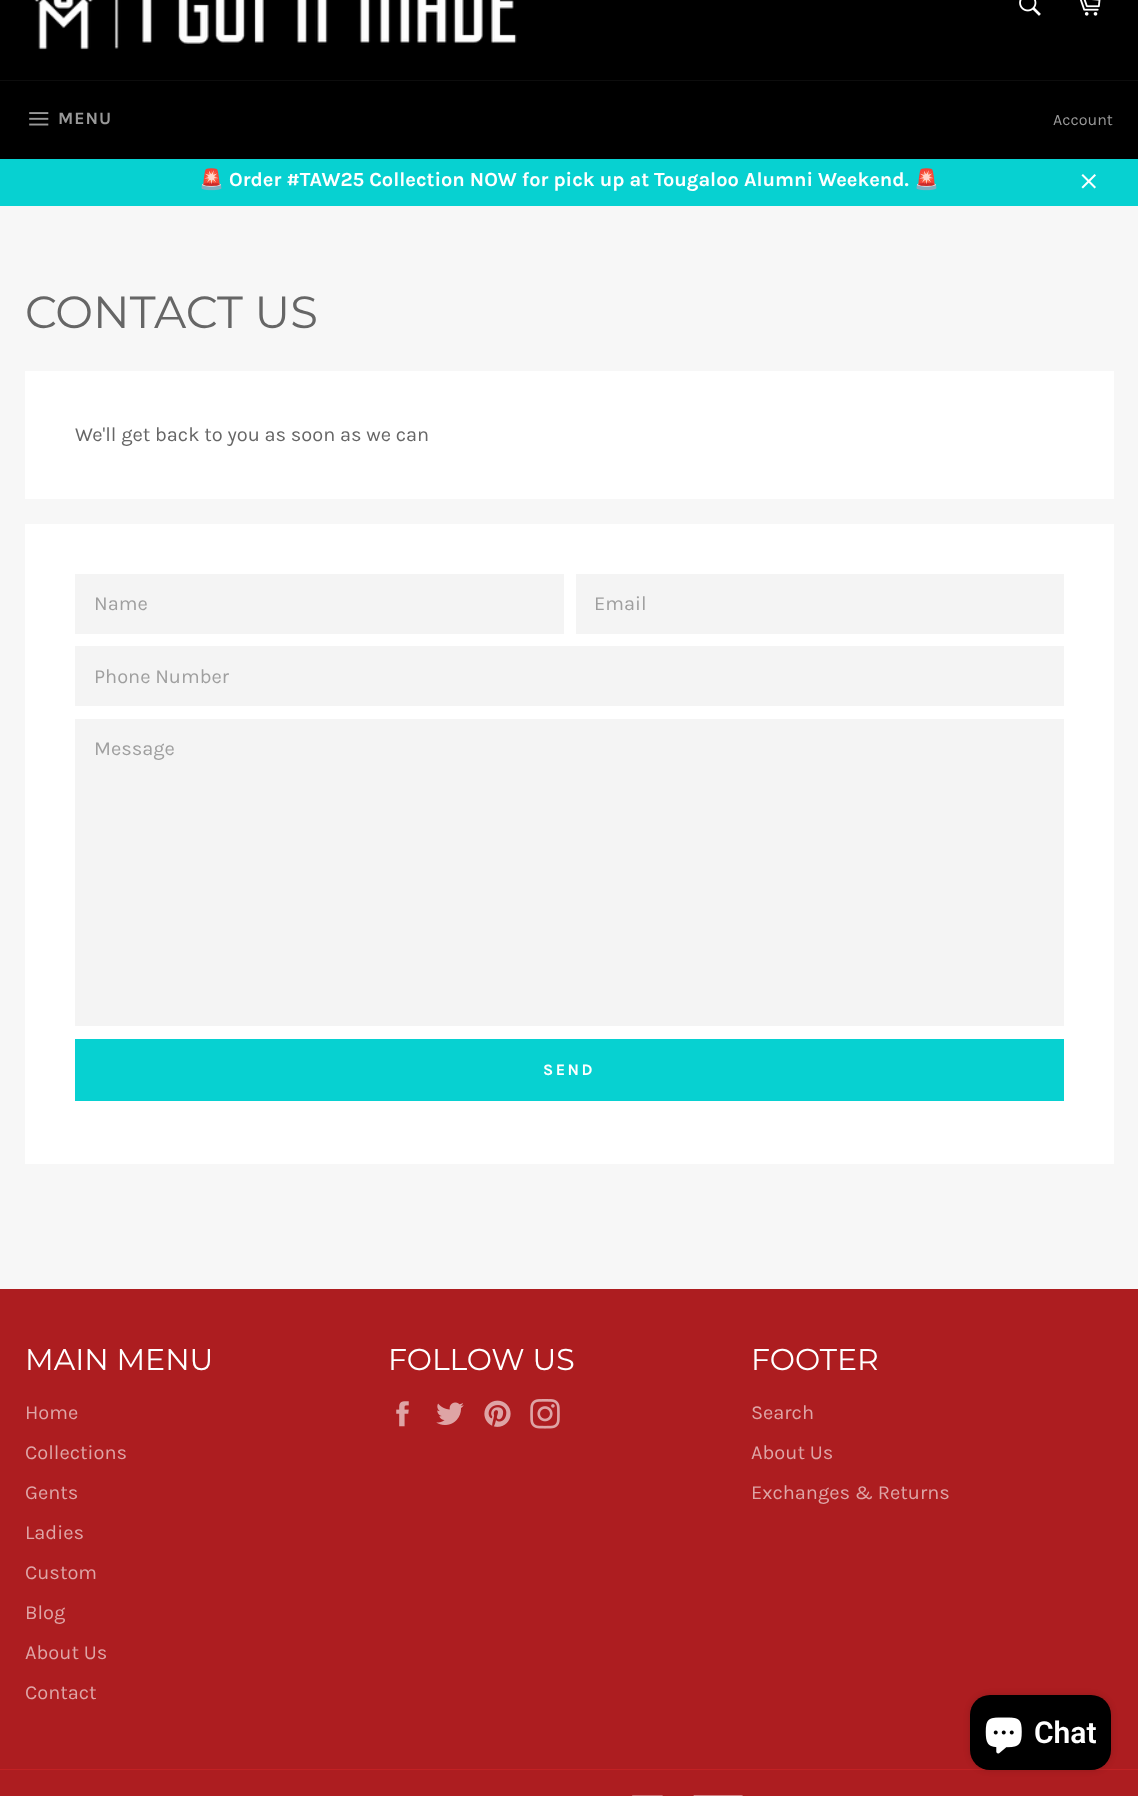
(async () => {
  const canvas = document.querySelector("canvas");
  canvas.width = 1138;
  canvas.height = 1796;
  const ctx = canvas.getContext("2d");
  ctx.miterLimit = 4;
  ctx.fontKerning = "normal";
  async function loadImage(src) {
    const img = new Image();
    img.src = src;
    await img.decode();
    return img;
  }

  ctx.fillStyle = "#f7f7f7";
  ctx.fillRect(0, 0, 1138, 1796);
  ctx.fillStyle = "#000000";
  ctx.fillRect(0, 0, 1138, 80);
  ctx.drawImage(await loadImage("img/1.png"), 34, 0, 483, 50);
  ctx.drawImage(await loadImage("img/2.png"), 1019, 0, 22, 16);
  ctx.drawImage(await loadImage("img/3.png"), 1080, 0, 21, 16);
  ctx.fillRect(0, 81, 1138, 78);
  ctx.fillStyle = "#0d0d0d";
  ctx.fillRect(0, 80, 1138, 1);
  ctx.drawImage(await loadImage("img/4.png"), 29, 112, 20, 14);
  ctx.fillStyle = "#07d1d1";
  ctx.fillRect(0, 159, 1138, 47);
  ctx.drawImage(await loadImage("img/5.png"), 1081, 174, 15, 15);
  for (const [x, y, w, h, color] of [
    [25, 371, 1089, 128, "#ffffff"],
    [25, 524, 1089, 640, "#ffffff"],
    [75, 574, 489, 60, "#f4f4f4"],
    [576, 574, 488, 60, "#f4f4f4"],
    [75, 646, 989, 60, "#f4f4f4"],
    [75, 719, 989, 307, "#f4f4f4"],
    [75, 1039, 989, 62, "#07d1d1"],
    [0, 1289, 1138, 507, "#ad1d20"],
  ]) {
    ctx.fillStyle = color;
    ctx.fillRect(x, y, w, h);
  }
  ctx.drawImage(await loadImage("img/6.png"), 396, 1401, 13, 26);
  ctx.drawImage(await loadImage("img/7.png"), 436, 1402, 28, 23);
  ctx.drawImage(await loadImage("img/8.png"), 484, 1400, 27, 27);
  ctx.drawImage(await loadImage("img/9.png"), 530, 1399, 30, 30);
  ctx.fillStyle = "#c32124";
  ctx.fillRect(0, 1769, 1138, 1);
  ctx.drawImage(await loadImage("img/10.png"), 632, 1795, 31, 1);
  ctx.drawImage(await loadImage("img/11.png"), 693, 1795, 50, 1);
  ctx.fillStyle = "rgba(0, 0, 0, 0.15)";
  ctx.filter = "blur(3px)";
  ctx.beginPath();
  ctx.roundRect(970, 1695, 141, 75, 20);
  ctx.fill();
  ctx.filter = "none";
  ctx.fillStyle = "#000000";
  ctx.beginPath();
  ctx.roundRect(970, 1695, 141, 75, 20);
  ctx.fill();
  ctx.drawImage(await loadImage("img/12.png"), 985, 1717, 37, 37);
  ctx.letterSpacing = "1px";
  ctx.font = "bold 17.5px Karla";
  ctx.fillStyle = "#999999";
  ctx.fillText("MENU", 58, 124);
  ctx.letterSpacing = "0px";
  ctx.font = "16px Karla";
  ctx.fillText("Account", 1053, 125);
  ctx.font = "bold 20px Noto Color Emoji";
  ctx.fillStyle = "#ffffff";
  ctx.fillText("🚨", 199, 186);
  ctx.font = "bold 20px Karla";
  ctx.fillText("Order #TAW25 Collection NOW for pick up at Tougaloo Alumni Weekend.", 229, 186);
  ctx.font = "bold 20px Noto Color Emoji";
  ctx.fillText("🚨", 914, 186);
  ctx.font = "45px Montserrat";
  ctx.fillStyle = "#666666";
  ctx.fillText("CONTACT US", 25, 328);
  ctx.font = "20px Karla";
  ctx.fillText("We'll get back to you as soon as we can", 75, 441);
  ctx.fillStyle = "#9f9f9f";
  for (const [text, x, y] of [
    ["Name", 94, 610],
    ["Email", 594, 610],
    ["Phone Number", 94, 683],
    ["Message", 94, 755],
  ]) {
    ctx.fillText(text, x, y);
  }
  ctx.letterSpacing = "2.5px";
  ctx.font = "bold 16px Karla";
  ctx.fillStyle = "#ffffff";
  ctx.fillText("SEND", 543, 1075);
  ctx.letterSpacing = "0px";
  ctx.font = "30px Montserrat";
  ctx.fillText("MAIN MENU", 25, 1370);
  ctx.font = "20px Karla";
  ctx.fillStyle = "#dea5a6";
  for (const [text, x, y] of [
    ["Home", 25, 1419],
    ["Collections", 25, 1459],
    ["Gents", 25, 1499],
    ["Ladies", 25, 1539],
    ["Custom", 25, 1579],
    ["Blog", 25, 1619],
    ["About Us", 25, 1659],
    ["Contact", 25, 1699],
  ]) {
    ctx.fillText(text, x, y);
  }
  ctx.font = "30px Montserrat";
  ctx.fillStyle = "#ffffff";
  ctx.fillText("FOLLOW US", 388, 1370);
  ctx.fillText("FOOTER", 751, 1370);
  ctx.font = "20px Karla";
  ctx.fillStyle = "#dea5a6";
  for (const [text, x, y] of [
    ["Search", 751, 1419],
    ["About Us", 751, 1459],
    ["Exchanges & Returns", 751, 1499],
  ]) {
    ctx.fillText(text, x, y);
  }
  ctx.font = "600 30px Roboto";
  ctx.fillStyle = "#ffffff";
  ctx.fillText("Chat", 1034, 1743);
})();
